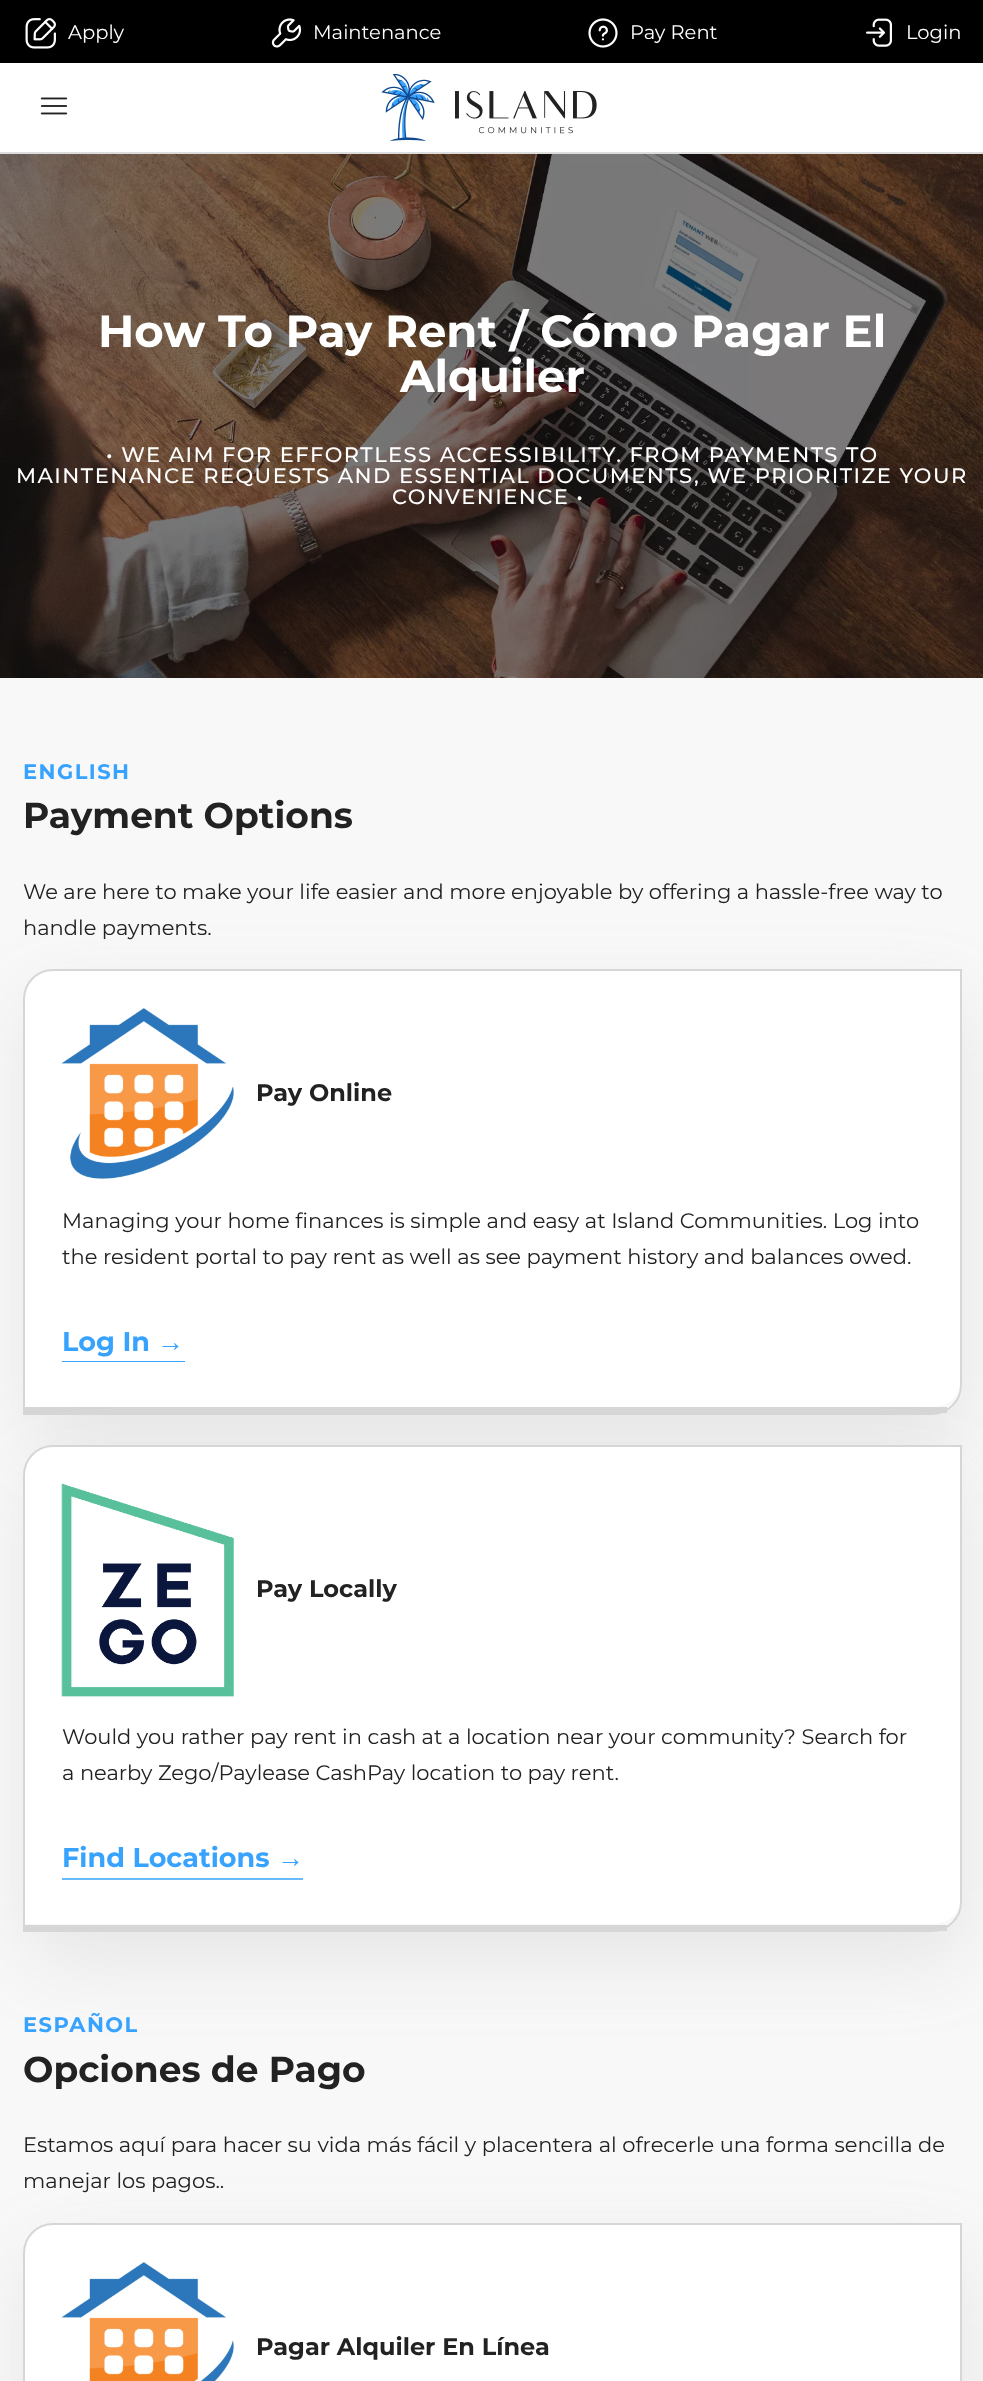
(async () => {
  const canvas = document.querySelector("canvas");
  canvas.width = 983;
  canvas.height = 2381;
  const ctx = canvas.getContext("2d");
  ctx.miterLimit = 4;
  ctx.fontKerning = "normal";
  async function loadImage(src) {
    const img = new Image();
    img.src = src;
    await img.decode();
    return img;
  }
  let path;

  ctx.fillStyle = "#f8f8f8";
  ctx.fillRect(0, 0, 983, 2381);
  ctx.fillStyle = "#000000";
  ctx.fillRect(0, 0, 983, 63);
  ctx.drawImage(await loadImage("img/1.png"), 25, 18, 31, 31);
  ctx.drawImage(await loadImage("img/2.png"), 271, 18, 31, 30);
  ctx.drawImage(await loadImage("img/3.png"), 588, 18, 30, 30);
  ctx.drawImage(await loadImage("img/4.png"), 866, 18, 26, 29);
  ctx.fillStyle = "#ffffff";
  ctx.fillRect(0, 63, 983, 89);
  ctx.fillStyle = "#dddddd";
  ctx.fillRect(0, 152, 983, 2);
  ctx.drawImage(await loadImage("img/5.png"), 40, 97, 28, 18);
  ctx.drawImage(await loadImage("img/6.png"), 381, 74, 216, 67);
  ctx.drawImage(await loadImage("img/7.png"), 0, 154, 983, 524);
  ctx.save();
  path = new Path2D("M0 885H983V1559H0ZM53 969H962V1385C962 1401.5 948.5 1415 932 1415H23V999C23 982.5 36.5 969 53 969Z");
  ctx.clip(path, "evenodd");
  ctx.fillStyle = "rgba(124, 124, 124, 0.14)";
  ctx.filter = "blur(37.5px)";
  ctx.beginPath();
  ctx.roundRect(27, 999, 939, 446, 30);
  ctx.fill();
  ctx.filter = "none";
  ctx.restore();
  ctx.fillStyle = "#ffffff";
  path = new Path2D("M52 970H960V1384C960 1397 947 1407 932 1407H24V999C24 983 37 970 52 970Z");
  ctx.fill(path);
  ctx.beginPath();
  ctx.roundRect(24, 970, 937, 444, [29, 0, 29, 0]);
  ctx.strokeStyle = "#d6d6d6";
  ctx.lineWidth = 2;
  ctx.stroke();
  ctx.fillStyle = "#d6d6d6";
  ctx.fillRect(23, 1407, 924, 6);
  ctx.drawImage(await loadImage("img/8.png"), 61, 1008, 173, 171);
  ctx.save();
  ctx.beginPath();
  ctx.rect(62, 1313, 123, 52);
  ctx.clip();
  path = new Path2D("M61.5 1361.5H184C199 1361.5 219 1351.5 244.5 1351.5C268 1351.5 286 1361.5 306 1361.5H429.5");
  ctx.strokeStyle = "#37a3fe";
  ctx.lineWidth = 1.1;
  ctx.stroke(path);
  ctx.restore();
  ctx.save();
  path = new Path2D("M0 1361H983V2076H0ZM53 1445H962V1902C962 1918.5 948.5 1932 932 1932H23V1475C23 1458.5 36.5 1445 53 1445Z");
  ctx.clip(path, "evenodd");
  ctx.fillStyle = "rgba(124, 124, 124, 0.14)";
  ctx.filter = "blur(37.5px)";
  ctx.beginPath();
  ctx.roundRect(27, 1475, 939, 487, 30);
  ctx.fill();
  ctx.filter = "none";
  ctx.restore();
  ctx.fillStyle = "#ffffff";
  path = new Path2D("M52 1446H960V1902C960 1914 947 1924 932 1924H24V1474C24 1459 37 1446 52 1446Z");
  ctx.fill(path);
  ctx.beginPath();
  ctx.roundRect(24, 1446, 937, 485, [29, 0, 29, 0]);
  ctx.stroke();
  ctx.fillStyle = "#d6d6d6";
  ctx.fillRect(23, 1925, 924, 6);
  ctx.drawImage(await loadImage("img/9.png"), 61, 1483, 173, 214);
  ctx.save();
  ctx.beginPath();
  ctx.rect(62, 1830, 241, 53);
  ctx.clip();
  path = new Path2D("M61.5 1879H303.5C333 1879 372.5 1869 423 1869C470 1869 504.5 1879 544.5 1879H788");
  ctx.strokeStyle = "#37a3fe";
  ctx.lineWidth = 1.5;
  ctx.stroke(path);
  ctx.restore();
  ctx.fillStyle = "rgba(124, 124, 124, 0.14)";
  ctx.filter = "blur(37.5px)";
  ctx.beginPath();
  ctx.roundRect(27, 2253, 939, 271, 30);
  ctx.fill();
  ctx.filter = "none";
  ctx.fillStyle = "#ffffff";
  path = new Path2D("M52 2224H960V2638C960 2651 947 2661 932 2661H24V2253C24 2237 37 2224 52 2224Z");
  ctx.fill(path);
  path = new Path2D("M53 2224H961V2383C961 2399 948 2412 932 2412H24V2253C24 2237 37 2224 53 2224Z");
  ctx.stroke(path);
  ctx.drawImage(await loadImage("img/10.png"), 61, 2262, 173, 119);
  ctx.font = "19.5px Montserrat";
  for (const [text, x, y] of [
    ["Apply", 68, 39],
    ["Maintenance", 313, 39],
    ["Pay Rent", 630, 39],
    ["Login", 906, 39],
  ]) {
    ctx.fillText(text, x, y);
  }
  ctx.font = "bold 45px Montserrat";
  ctx.fillText("How To Pay Rent / Cómo Pagar El", 98, 347);
  ctx.fillText("Alquiler", 400, 392);
  ctx.letterSpacing = "1.47px";
  ctx.font = "500 21px Montserrat";
  for (const [text, x, y] of [
    ["• WE AIM FOR EFFORTLESS ACCESSIBILITY. FROM PAYMENTS TO", 106, 462],
    ["MAINTENANCE REQUESTS AND ESSENTIAL DOCUMENTS, WE PRIORITIZE YOUR", 16, 483],
    ["CONVENIENCE •", 392, 504],
  ]) {
    ctx.fillText(text, x, y);
  }
  ctx.font = "bold 21px Montserrat";
  ctx.fillStyle = "#37a3fe";
  ctx.fillText("ENGLISH", 23, 779);
  ctx.letterSpacing = "0px";
  ctx.font = "bold 36px Montserrat";
  ctx.fillStyle = "#222222";
  ctx.fillText("Payment Options", 23, 828);
  ctx.font = "21px Montserrat";
  ctx.fillText("We are here to make your life easier and more enjoyable by offering a hassle-free way to", 23, 899);
  ctx.fillText("handle payments.", 23, 935);
  ctx.font = "bold 24px Montserrat";
  ctx.fillText("Pay Online", 256, 1101);
  ctx.font = "21px Montserrat";
  ctx.fillText("Managing your home finances is simple and easy at Island Communities. Log into", 62, 1228);
  ctx.fillText("the resident portal to pay rent as well as see payment history and balances owed.", 62, 1264);
  ctx.font = "bold 27px Montserrat";
  ctx.fillStyle = "#37a3fe";
  ctx.fillText("Log In", 62, 1351);
  ctx.font = "bold 27px Liberation Serif";
  ctx.fillText("→", 157, 1351);
  ctx.font = "bold 24px Montserrat";
  ctx.fillStyle = "#222222";
  ctx.fillText("Pay Locally", 256, 1597);
  ctx.font = "21px Montserrat";
  ctx.fillText("Would you rather pay rent in cash at a location near your community? Search for", 62, 1744);
  ctx.fillText("a nearby Zego/Paylease CashPay location to pay rent.", 62, 1780);
  ctx.font = "bold 27px Montserrat";
  ctx.fillStyle = "#37a3fe";
  ctx.fillText("Find Locations", 62, 1867);
  ctx.font = "bold 27px Liberation Serif";
  ctx.fillText("→", 277, 1867);
  ctx.letterSpacing = "1.47px";
  ctx.font = "bold 21px Montserrat";
  ctx.fillText("ESPAÑOL", 23, 2032);
  ctx.letterSpacing = "0px";
  ctx.font = "bold 36px Montserrat";
  ctx.fillStyle = "#222222";
  ctx.fillText("Opciones de Pago", 23, 2082);
  ctx.font = "21px Montserrat";
  ctx.fillText("Estamos aquí para hacer su vida más fácil y placentera al ofrecerle una forma sencilla de", 23, 2152);
  ctx.fillText("manejar los pagos..", 23, 2188);
  ctx.font = "bold 24px Montserrat";
  ctx.fillText("Pagar Alquiler En Línea", 256, 2355);
})();
